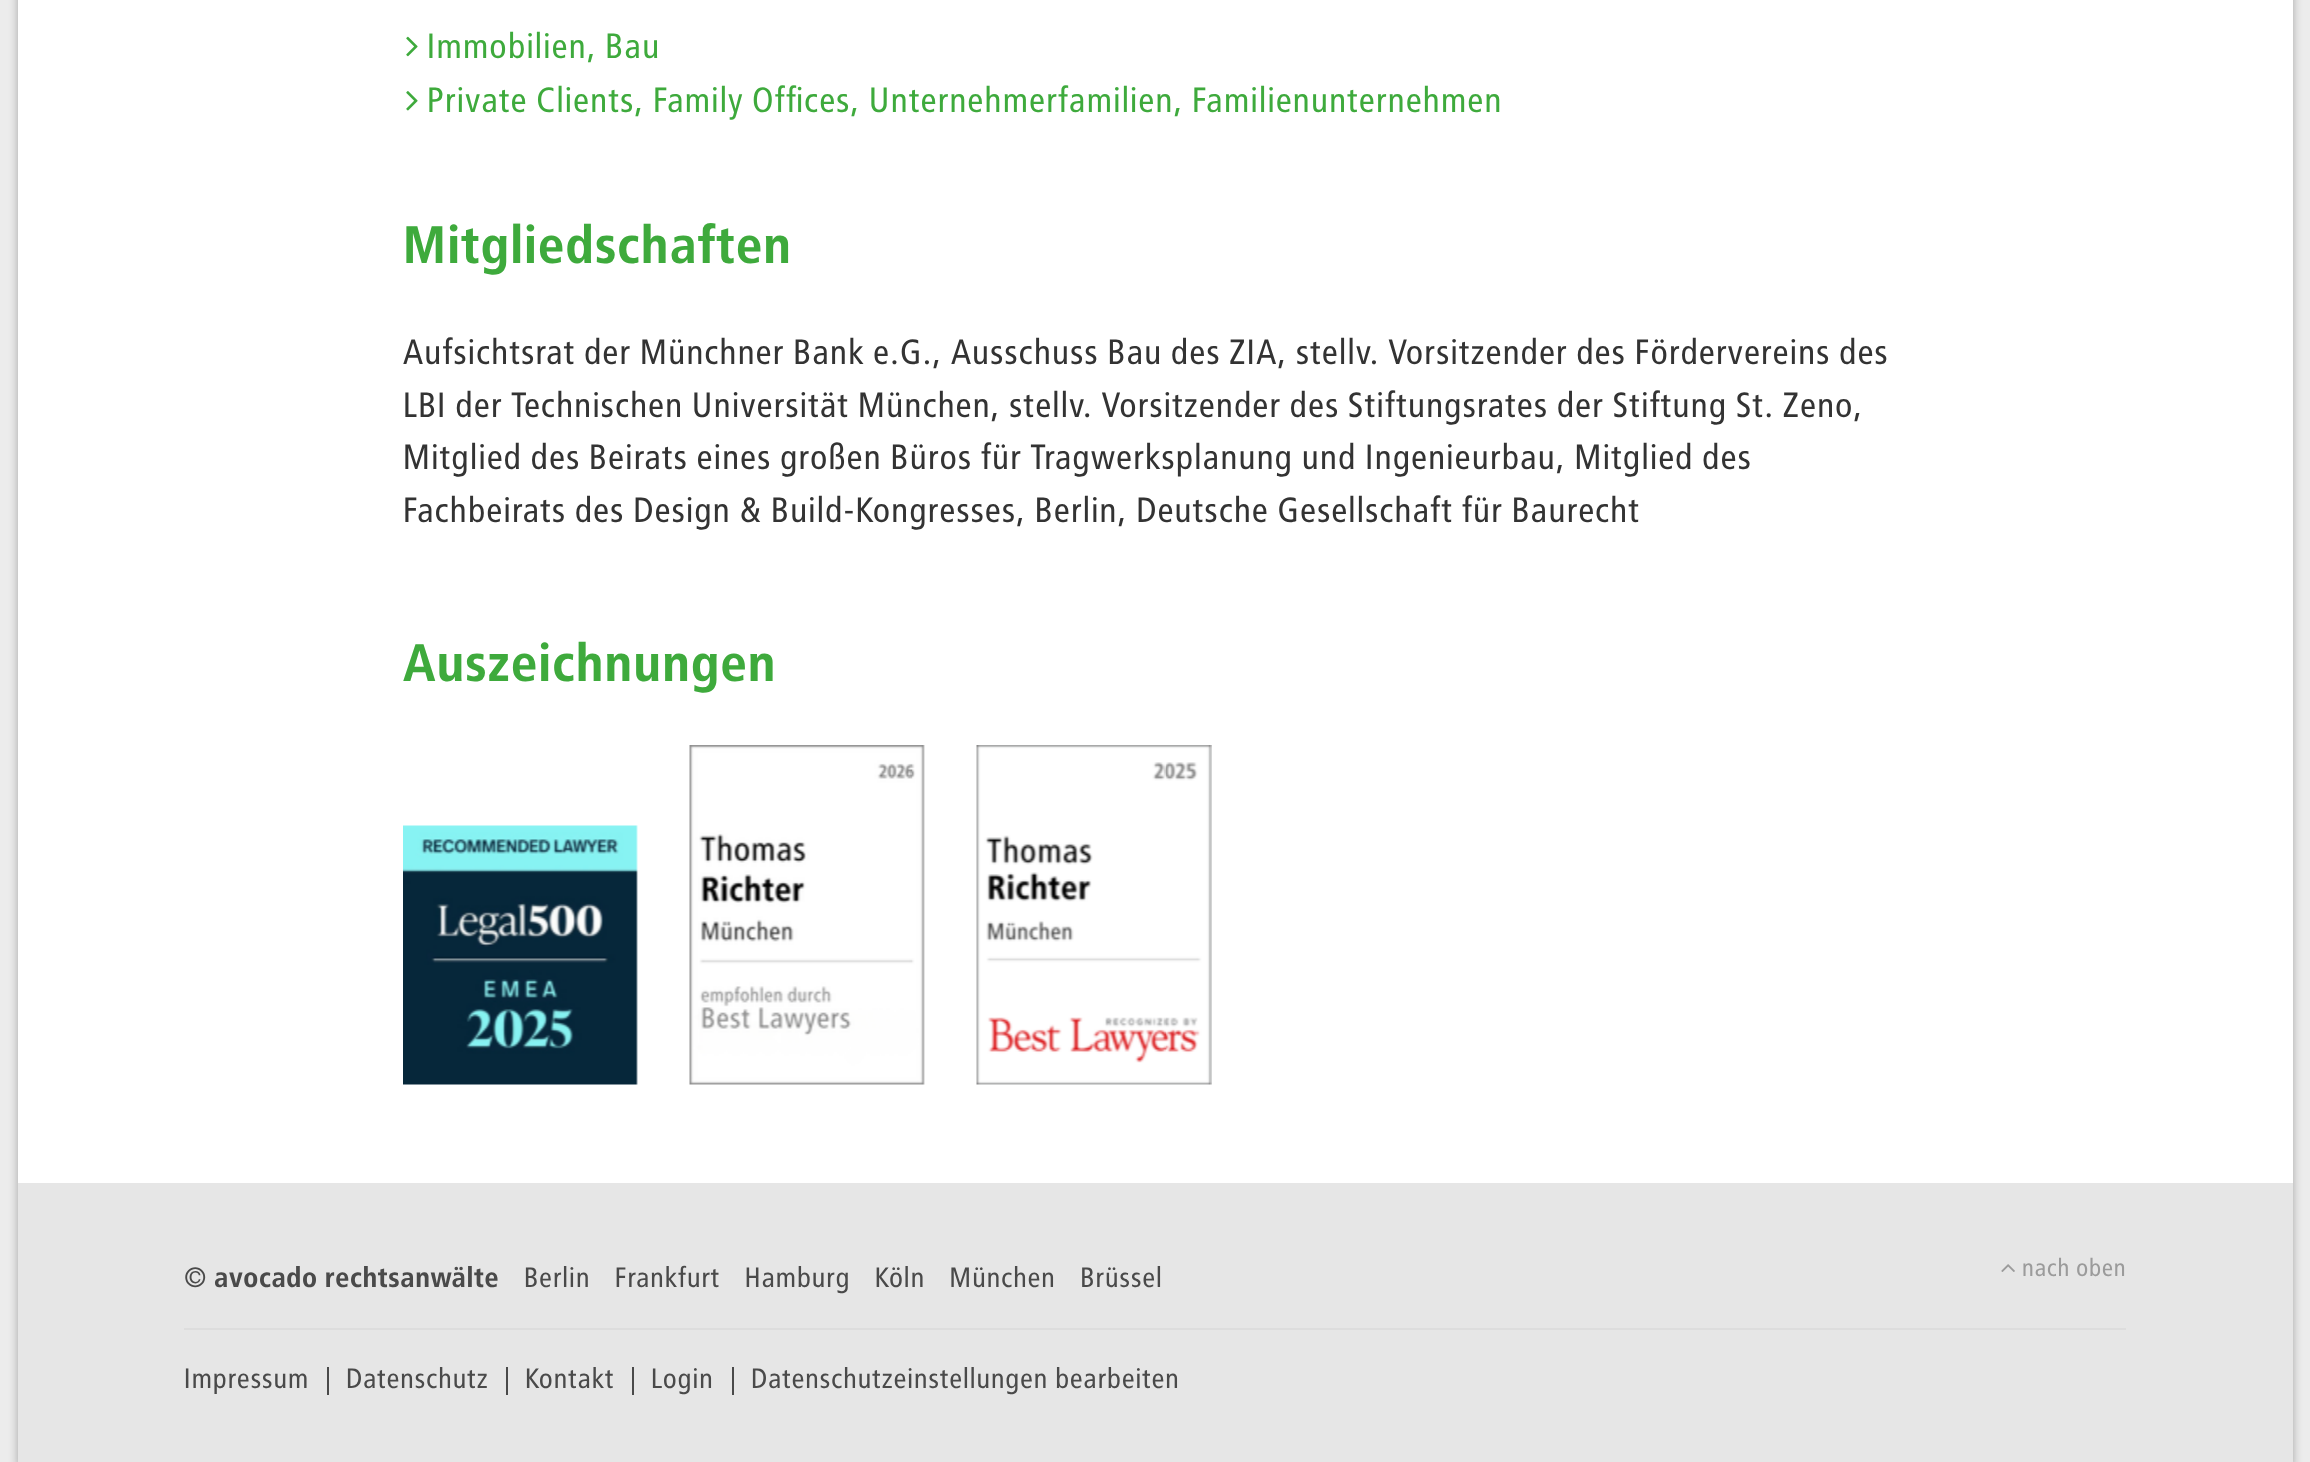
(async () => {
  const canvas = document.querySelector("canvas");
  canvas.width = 2310;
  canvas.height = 1462;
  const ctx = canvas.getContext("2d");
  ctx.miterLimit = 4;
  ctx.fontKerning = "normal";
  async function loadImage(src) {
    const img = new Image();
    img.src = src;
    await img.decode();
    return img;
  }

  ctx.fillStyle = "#ececec";
  ctx.fillRect(0, 0, 2310, 1462);
  ctx.fillStyle = "rgba(0, 0, 0, 0.3)";
  ctx.filter = "blur(5px)";
  ctx.beginPath();
  ctx.rect(18, -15, 2275, 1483);
  ctx.fill();
  ctx.filter = "none";
  ctx.fillStyle = "#ffffff";
  ctx.fillRect(18, 0, 2275, 1183);
  ctx.drawImage(await loadImage("img/1.png"), 406, 36, 12, 21);
  ctx.drawImage(await loadImage("img/2.png"), 406, 91, 12, 20);
  ctx.drawImage(await loadImage("img/3.png"), 403, 825, 235, 260);
  ctx.drawImage(await loadImage("img/4.png"), 689, 745, 236, 340);
  ctx.drawImage(await loadImage("img/5.png"), 976, 745, 236, 340);
  ctx.fillStyle = "#e6e6e6";
  ctx.fillRect(18, 1183, 2275, 279);
  ctx.fillStyle = "#dddddd";
  ctx.fillRect(184, 1328, 1942, 2);
  ctx.drawImage(await loadImage("img/6.png"), 2001, 1264, 14, 8);
  for (const [x, y, w, h, color] of [
    [327, 1367, 2, 28, "#4a4a4a"],
    [506, 1367, 2, 28, "#4a4a4a"],
    [632, 1367, 2, 28, "#4a4a4a"],
    [732, 1367, 2, 28, "#4a4a4a"],
  ]) {
    ctx.fillStyle = color;
    ctx.fillRect(x, y, w, h);
  }
  ctx.font = "35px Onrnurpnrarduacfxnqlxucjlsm";
  ctx.fillStyle = "#3eaa3c";
  ctx.fillText("Immobilien, Bau", 427, 58);
  ctx.fillText("Private Clients, Family Offices, Unternehmerfamilien, Familienunternehmen", 427, 112);
  ctx.font = "bold 52.5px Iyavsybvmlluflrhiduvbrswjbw";
  ctx.fillText("Mitgliedschaften", 403, 263);
  ctx.font = "35px Onrnurpnrarduacfxnqlxucjlsm";
  ctx.fillStyle = "#333333";
  for (const [text, x, y] of [
    ["Aufsichtsrat der Münchner Bank e.G., Ausschuss Bau des ZIA, stellv. Vorsitzender des Fördervereins des", 403, 364],
    ["LBI der Technischen Universität München, stellv. Vorsitzender des Stiftungsrates der Stiftung St. Zeno,", 403, 417],
    ["Mitglied des Beirats eines großen Büros für Tragwerksplanung und Ingenieurbau, Mitglied des", 403, 469],
    ["Fachbeirats des Design & Build-Kongresses, Berlin, Deutsche Gesellschaft für Baurecht", 403, 522],
  ]) {
    ctx.fillText(text, x, y);
  }
  ctx.font = "bold 52.5px Iyavsybvmlluflrhiduvbrswjbw";
  ctx.fillStyle = "#3eaa3c";
  ctx.fillText("Auszeichnungen", 403, 681);
  ctx.font = "28px Onrnurpnrarduacfxnqlxucjlsm";
  ctx.fillStyle = "#4a4a4a";
  ctx.fillText("©", 184, 1287);
  ctx.font = "bold 28px Iyavsybvmlluflrhiduvbrswjbw";
  ctx.fillText("avocado rechtsanwälte", 214, 1287);
  ctx.wordSpacing = "17.5px";
  ctx.font = "28px Onrnurpnrarduacfxnqlxucjlsm";
  ctx.fillText("Berlin Frankfurt Hamburg Köln München Brüssel", 524, 1287);
  ctx.wordSpacing = "0px";
  ctx.font = "24.5px Onrnurpnrarduacfxnqlxucjlsm";
  ctx.fillStyle = "#9b9b9b";
  ctx.fillText("nach oben", 2022, 1276);
  ctx.font = "28px Onrnurpnrarduacfxnqlxucjlsm";
  ctx.fillStyle = "#4a4a4a";
  for (const [text, x, y] of [
    ["Impressum", 184, 1388],
    ["Datenschutz", 346, 1388],
    ["Kontakt", 525, 1388],
    ["Login", 651, 1388],
    ["Datenschutzeinstellungen bearbeiten", 751, 1388],
  ]) {
    ctx.fillText(text, x, y);
  }
})();
